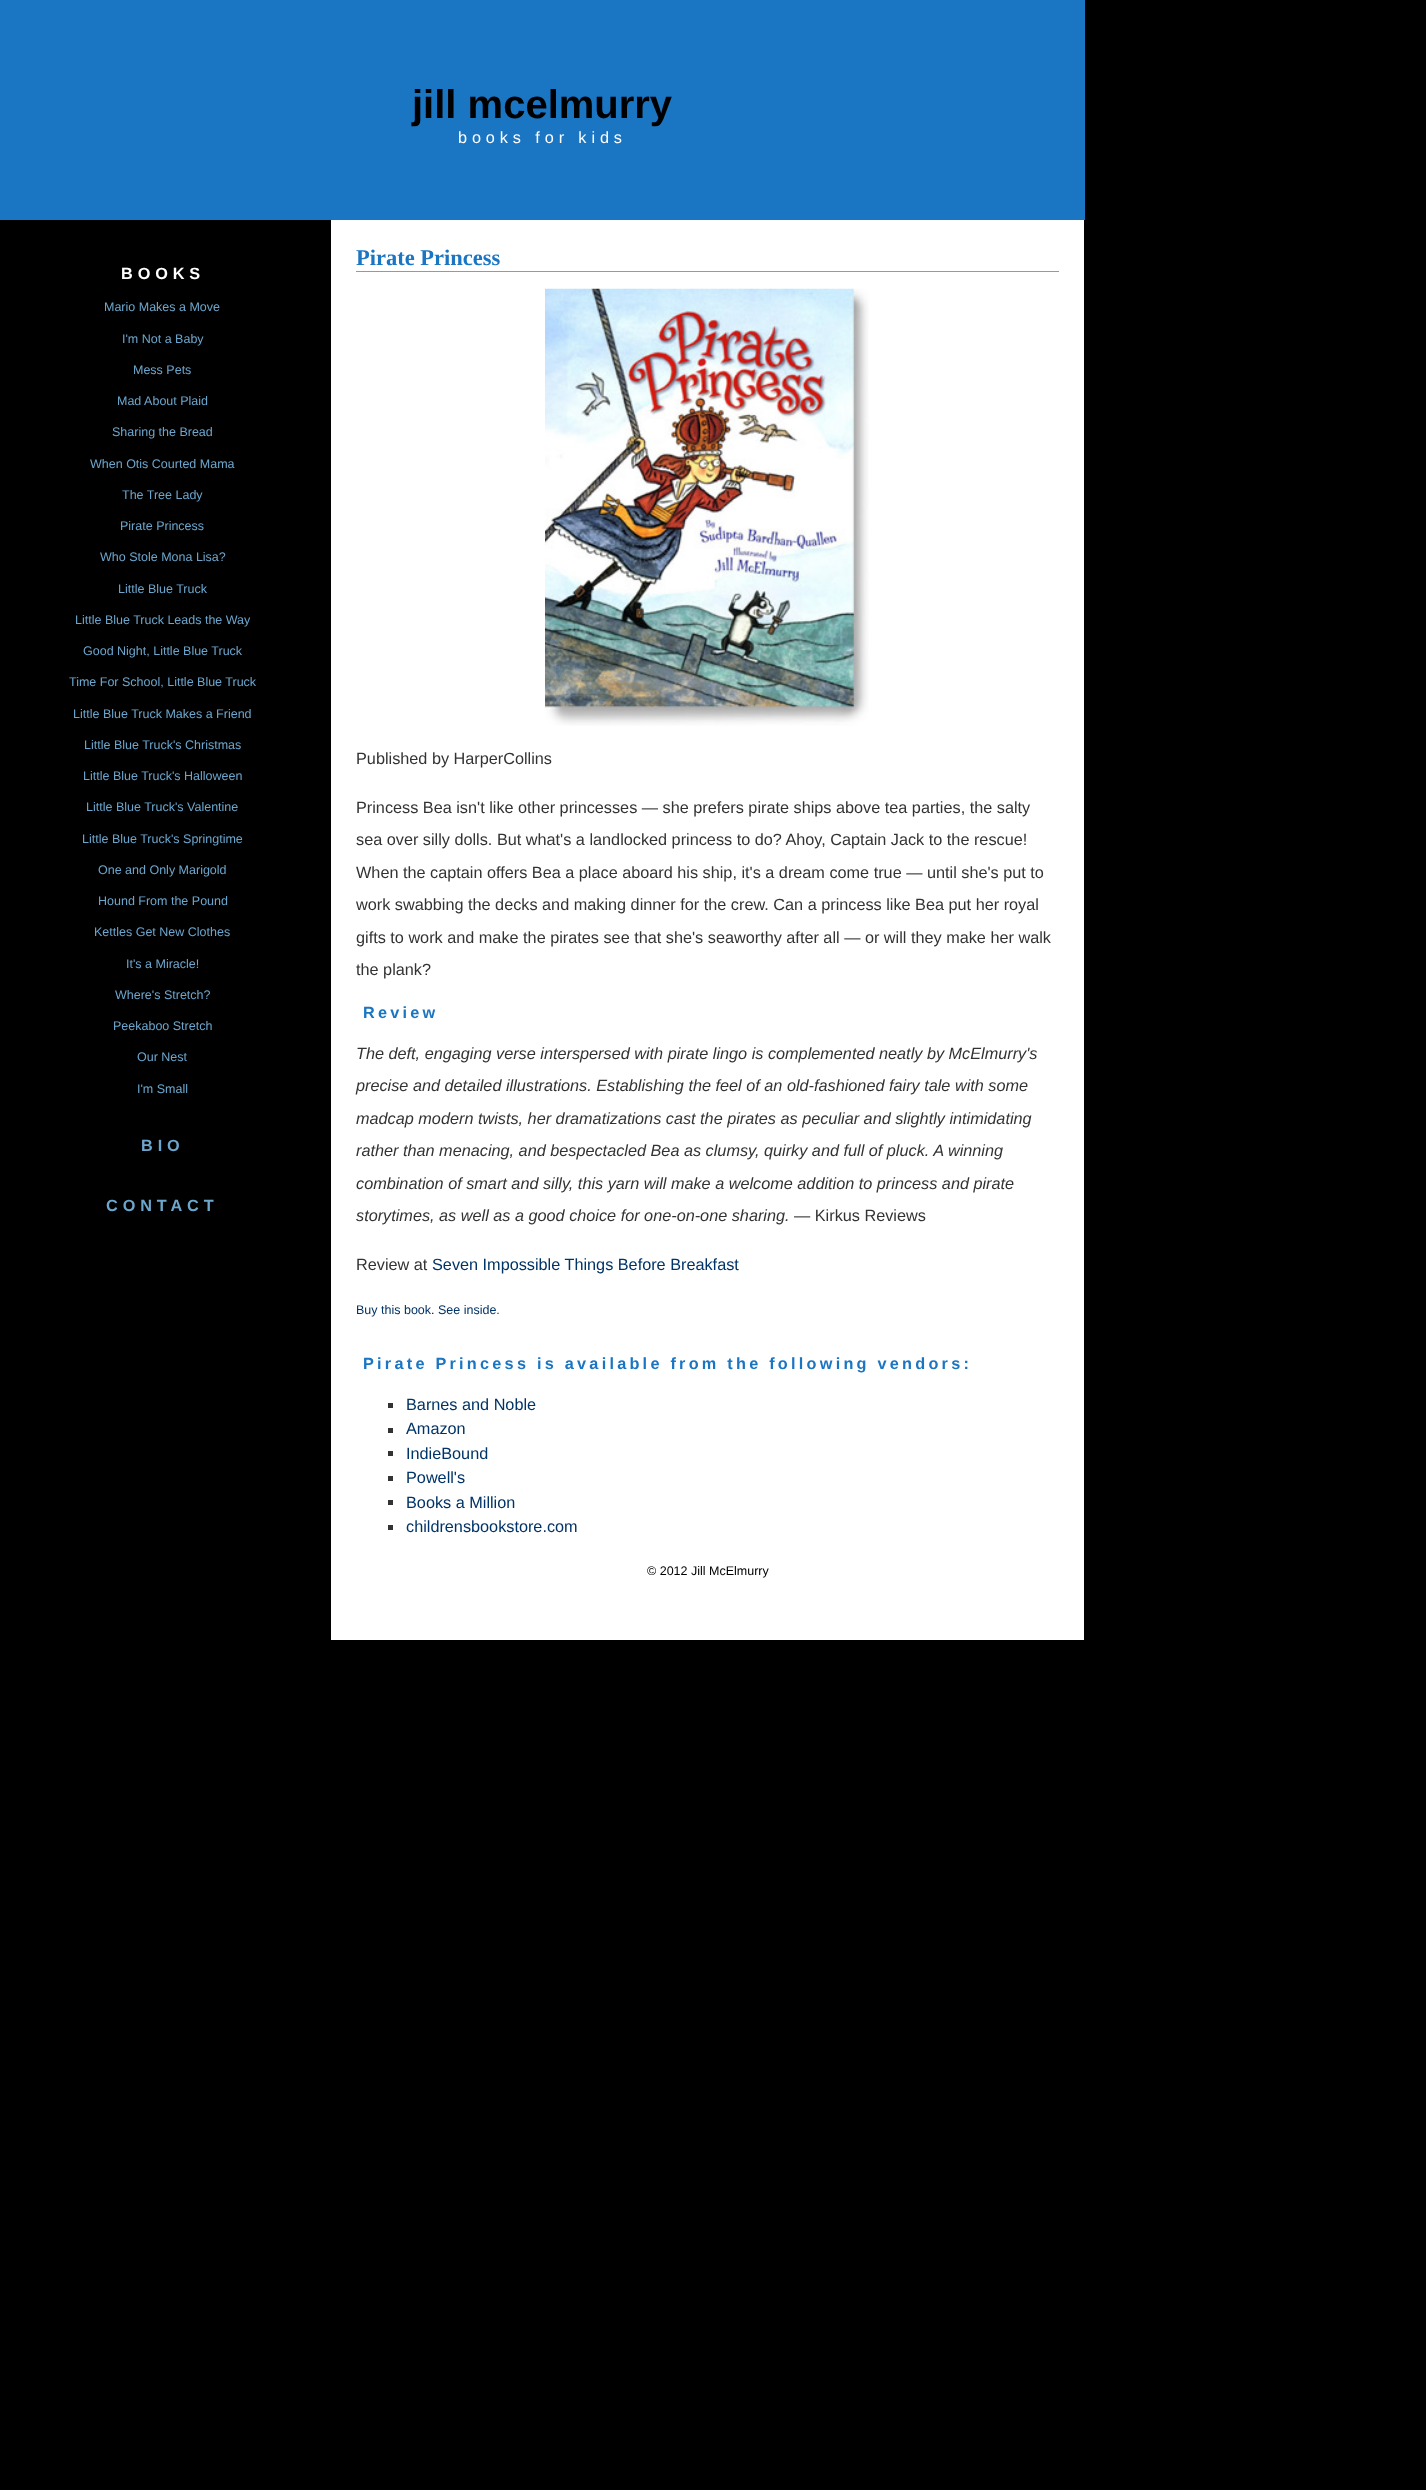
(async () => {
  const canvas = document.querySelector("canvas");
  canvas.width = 1426;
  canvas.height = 2490;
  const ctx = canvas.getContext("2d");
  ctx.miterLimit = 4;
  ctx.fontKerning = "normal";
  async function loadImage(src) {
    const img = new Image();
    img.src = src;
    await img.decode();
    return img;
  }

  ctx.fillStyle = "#000000";
  ctx.fillRect(0, 0, 1426, 2490);
  for (const [x, y, w, h, color] of [
    [0, 0, 1085, 220, "#1a75c2"],
    [331, 220, 753, 1420, "#ffffff"],
    [356, 271, 703, 1, "#999999"],
  ]) {
    ctx.fillStyle = color;
    ctx.fillRect(x, y, w, h);
  }
  ctx.drawImage(await loadImage("img/1.png"), 545, 288, 324, 438);
  for (const [x, y, w, h, color] of [
    [388, 1403, 5, 5, "#333333"],
    [388, 1428, 5, 5, "#333333"],
    [388, 1451, 5, 5, "#333333"],
    [388, 1476, 5, 5, "#333333"],
    [388, 1500, 5, 5, "#333333"],
    [388, 1525, 5, 5, "#333333"],
  ]) {
    ctx.fillStyle = color;
    ctx.fillRect(x, y, w, h);
  }
  ctx.font = "bold 40px Liberation Sans";
  ctx.fillStyle = "#000000";
  ctx.fillText("jill mcelmurry", 412, 118);
  ctx.letterSpacing = "4.9px";
  ctx.font = "16.25px Liberation Sans";
  ctx.fillStyle = "#ffffff";
  ctx.fillText("books for kids", 458, 143);
  ctx.font = "bold 16.25px Liberation Sans";
  ctx.fillText("BOOKS", 121, 279);
  ctx.letterSpacing = "0px";
  ctx.font = "12.5px Liberation Sans";
  ctx.fillStyle = "#6ca6cd";
  for (const [text, x, y] of [
    ["Mario Makes a Move", 104, 311],
    ["I'm Not a Baby", 122, 343],
    ["Mess Pets", 133, 374],
    ["Mad About Plaid", 117, 405],
    ["Sharing the Bread", 112, 436],
    ["When Otis Courted Mama", 90, 468],
    ["The Tree Lady", 122, 499],
    ["Pirate Princess", 120, 530],
    ["Who Stole Mona Lisa?", 100, 561],
    ["Little Blue Truck", 118, 593],
    ["Little Blue Truck Leads the Way", 75, 624],
    ["Good Night, Little Blue Truck", 83, 655],
    ["Time For School, Little Blue Truck", 69, 686],
    ["Little Blue Truck Makes a Friend", 73, 718],
    ["Little Blue Truck's Christmas", 84, 749],
    ["Little Blue Truck's Halloween", 83, 780],
    ["Little Blue Truck's Valentine", 86, 811],
    ["Little Blue Truck's Springtime", 82, 843],
    ["One and Only Marigold", 98, 874],
    ["Hound From the Pound", 98, 905],
    ["Kettles Get New Clothes", 94, 936],
    ["It's a Miracle!", 126, 968],
    ["Where's Stretch?", 115, 999],
    ["Peekaboo Stretch", 113, 1030],
    ["Our Nest", 137, 1061],
    ["I'm Small", 137, 1093],
  ]) {
    ctx.fillText(text, x, y);
  }
  ctx.letterSpacing = "4.9px";
  ctx.font = "bold 16.25px Liberation Sans";
  ctx.fillText("BIO", 141, 1151);
  ctx.fillText("CONTACT", 106, 1211);
  ctx.letterSpacing = "0px";
  ctx.font = "bold 22.5px Liberation Serif";
  ctx.fillStyle = "#1a75c2";
  ctx.fillText("Pirate Princess", 356, 265);
  ctx.font = "16.25px Liberation Sans";
  ctx.fillStyle = "#333333";
  for (const [text, x, y] of [
    ["Published by HarperCollins", 356, 764],
    ["Princess Bea isn't like other princesses — she prefers pirate ships above tea parties, the salty", 356, 813],
    ["sea over silly dolls. But what's a landlocked princess to do? Ahoy, Captain Jack to the rescue!", 356, 845],
    ["When the captain offers Bea a place aboard his ship, it's a dream come true — until she's put to", 356, 878],
    ["work swabbing the decks and making dinner for the crew. Can a princess like Bea put her royal", 356, 910],
    ["gifts to work and make the pirates see that she's seaworthy after all — or will they make her walk", 356, 943],
    ["the plank?", 356, 975],
  ]) {
    ctx.fillText(text, x, y);
  }
  ctx.letterSpacing = "3.25px";
  ctx.font = "bold 16.25px Liberation Sans";
  ctx.fillStyle = "#1a75c2";
  ctx.fillText("Review", 363, 1018);
  ctx.letterSpacing = "0px";
  ctx.font = "italic 16.25px Liberation Sans";
  ctx.fillStyle = "#333333";
  for (const [text, x, y] of [
    ["The deft, engaging verse interspersed with pirate lingo is complemented neatly by McElmurry's", 356, 1059],
    ["precise and detailed illustrations. Establishing the feel of an old-fashioned fairy tale with some", 356, 1091],
    ["madcap modern twists, her dramatizations cast the pirates as peculiar and slightly intimidating", 356, 1124],
    ["rather than menacing, and bespectacled Bea as clumsy, quirky and full of pluck. A winning", 356, 1156],
    ["combination of smart and silly, this yarn will make a welcome addition to princess and pirate", 356, 1189],
    ["storytimes, as well as a good choice for one-on-one sharing.", 356, 1221],
  ]) {
    ctx.fillText(text, x, y);
  }
  ctx.font = "16.25px Liberation Sans";
  ctx.fillText("— Kirkus Reviews", 794, 1221);
  ctx.fillText("Review at", 356, 1270);
  ctx.fillStyle = "#003366";
  ctx.fillText("Seven Impossible Things Before Breakfast", 432, 1270);
  ctx.font = "12.5px Liberation Sans";
  ctx.fillText("Buy this book", 356, 1314);
  ctx.fillStyle = "#000000";
  ctx.fillText(".", 431, 1314);
  ctx.fillStyle = "#003366";
  ctx.fillText("See inside.", 438, 1314);
  ctx.letterSpacing = "3.25px";
  ctx.font = "bold 16.25px Liberation Sans";
  ctx.fillStyle = "#1a75c2";
  ctx.fillText("Pirate Princess is available from the following vendors:", 363, 1369);
  ctx.letterSpacing = "0px";
  ctx.font = "16.25px Liberation Sans";
  ctx.fillStyle = "#003366";
  for (const [text, x, y] of [
    ["Barnes and Noble", 406, 1410],
    ["Amazon", 406, 1434],
    ["IndieBound", 406, 1459],
    ["Powell's", 406, 1483],
    ["Books a Million", 406, 1508],
    ["childrensbookstore.com", 406, 1532],
  ]) {
    ctx.fillText(text, x, y);
  }
  ctx.font = "12.5px Liberation Sans";
  ctx.fillStyle = "#000000";
  ctx.fillText("© 2012 Jill McElmurry", 647, 1575);
})();
